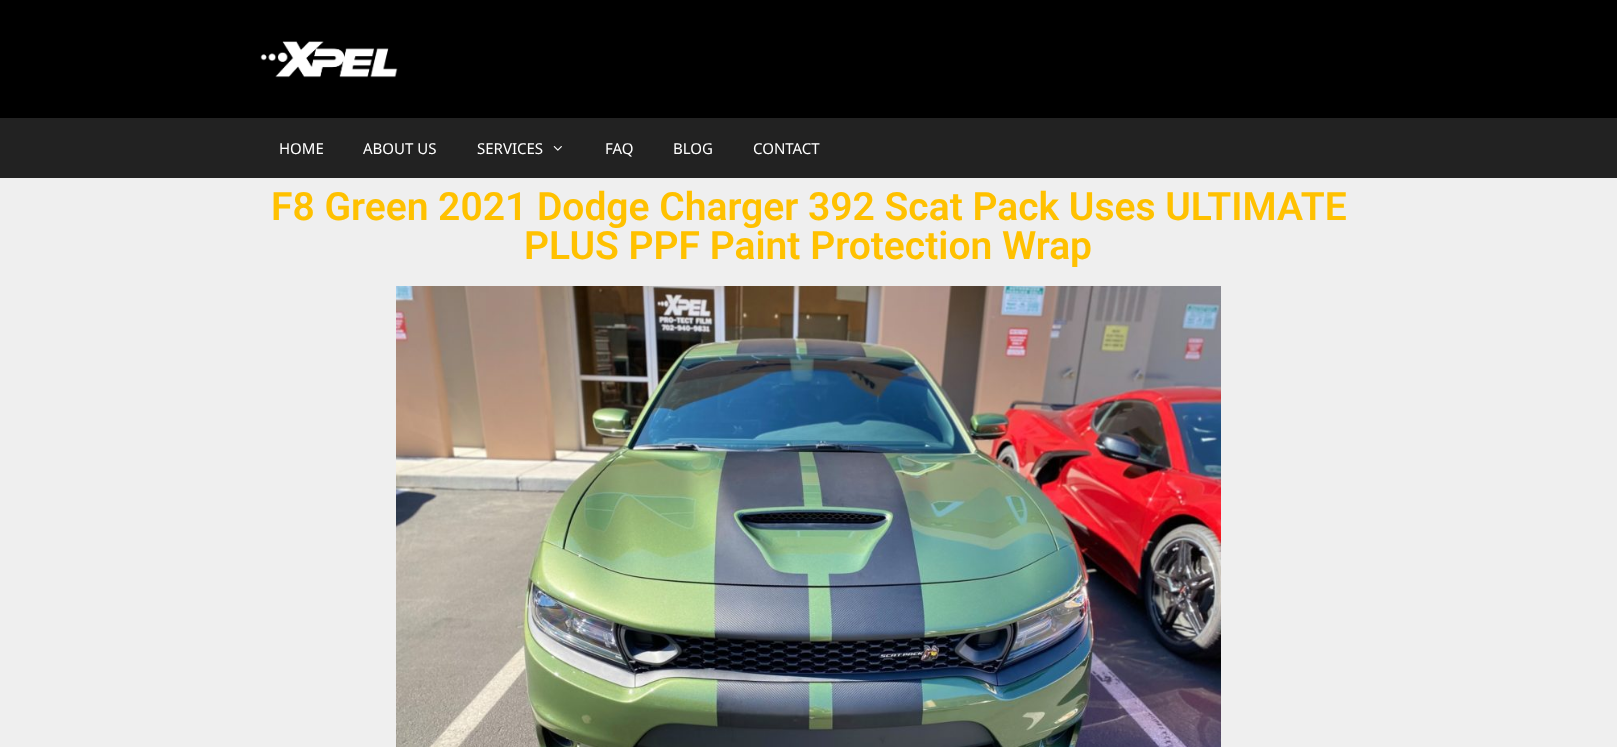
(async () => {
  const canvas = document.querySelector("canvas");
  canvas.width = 1617;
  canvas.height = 747;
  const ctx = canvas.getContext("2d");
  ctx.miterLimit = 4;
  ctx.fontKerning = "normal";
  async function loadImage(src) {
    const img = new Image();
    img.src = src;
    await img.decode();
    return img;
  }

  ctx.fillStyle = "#efefef";
  ctx.fillRect(0, 0, 1617, 747);
  ctx.fillStyle = "#000000";
  ctx.fillRect(0, 0, 1617, 118);
  ctx.drawImage(await loadImage("img/1.png"), 260, 41, 138, 37);
  ctx.fillStyle = "#222222";
  ctx.fillRect(0, 118, 1617, 60);
  ctx.drawImage(await loadImage("img/2.png"), 553, 146, 9, 5);
  ctx.drawImage(await loadImage("img/3.png"), 396, 286, 825, 461);
  ctx.font = "15px Noto Sans";
  ctx.fillStyle = "#ffffff";
  for (const [text, x, y] of [
    ["HOME", 279, 154],
    ["ABOUT US", 363, 154],
    ["SERVICES", 477, 154],
    ["FAQ", 605, 154],
    ["BLOG", 673, 154],
    ["CONTACT", 753, 154],
  ]) {
    ctx.fillText(text, x, y);
  }
  ctx.font = "600 39px Roboto";
  ctx.fillStyle = "#ffc100";
  ctx.fillText("F8 Green 2021 Dodge Charger 392 Scat Pack Uses ULTIMATE", 271, 220);
  ctx.fillText("PLUS PPF Paint Protection Wrap", 524, 259);
})();
